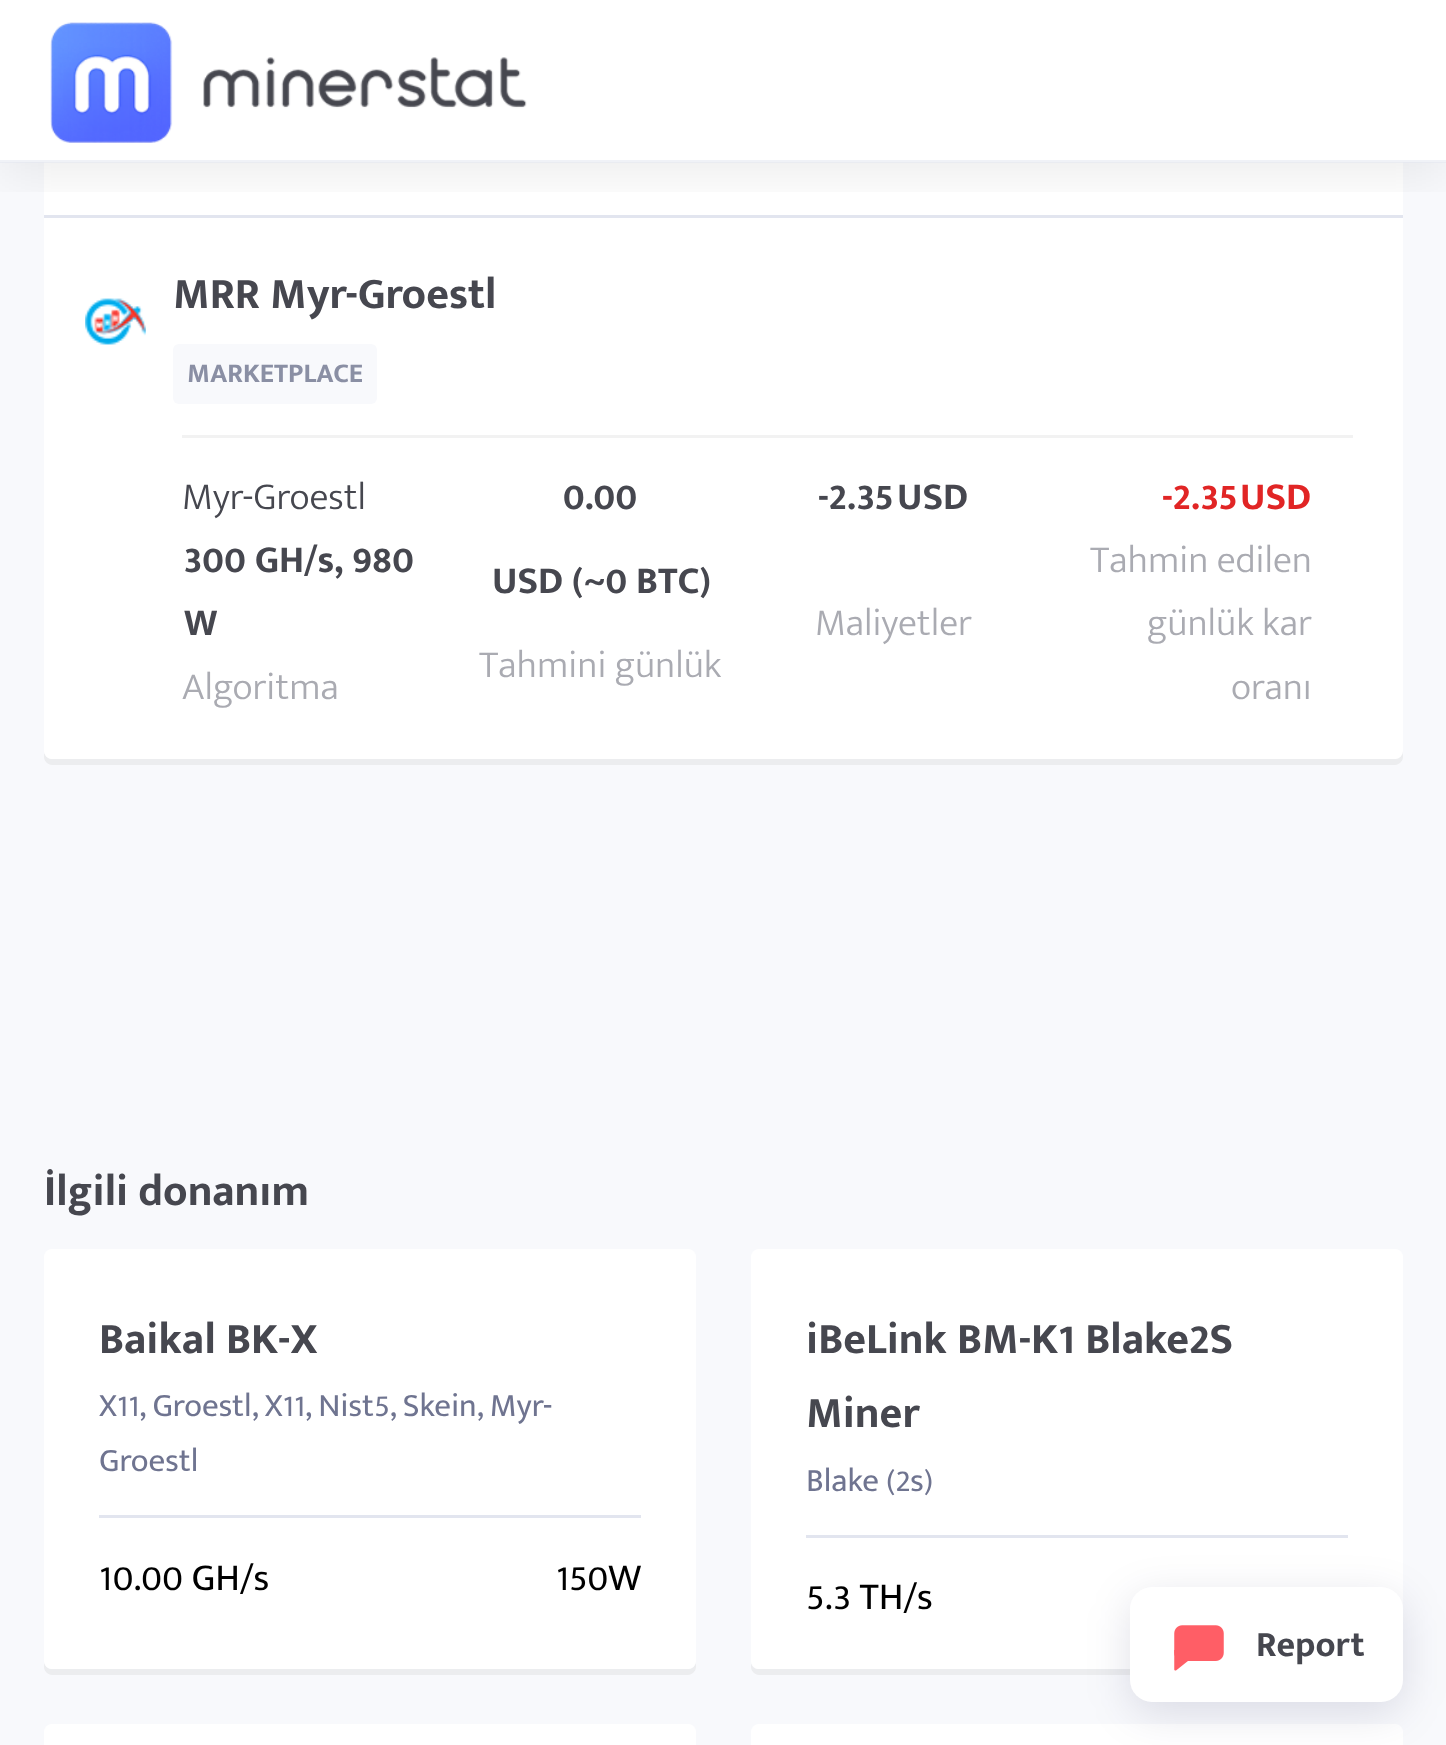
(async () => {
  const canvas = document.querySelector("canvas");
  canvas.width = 1446;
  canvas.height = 1745;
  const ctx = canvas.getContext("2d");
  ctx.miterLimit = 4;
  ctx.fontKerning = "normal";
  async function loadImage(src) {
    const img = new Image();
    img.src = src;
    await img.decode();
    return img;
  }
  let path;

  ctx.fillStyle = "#f8f9fc";
  ctx.fillRect(0, 0, 1446, 1745);
  ctx.fillStyle = "#ecedef";
  path = new Path2D("M44 751V757C44 761 48 765 52 765H1395C1399 765 1403 761 1403 757V-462L1402-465V751C1402 755 1399 759 1394 759H52C48 759 44 755 44 751Z");
  ctx.fill(path);
  ctx.fillStyle = "#ffffff";
  ctx.beginPath();
  ctx.roundRect(44, -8, 1359, 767, 8);
  ctx.fill();
  ctx.fillStyle = "#e2e5ef";
  ctx.fillRect(44, 215, 1359, 3);
  ctx.save();
  ctx.beginPath();
  ctx.rect(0, 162, 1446, 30);
  ctx.clip();
  ctx.fillStyle = "rgba(0, 0, 0, 0.08)";
  ctx.filter = "blur(27.5px)";
  ctx.beginPath();
  ctx.rect(0, 11, 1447, 162);
  ctx.fill();
  ctx.filter = "none";
  ctx.restore();
  ctx.fillStyle = "rgba(255, 255, 255, 0.95)";
  ctx.fillRect(0, 0, 1446, 162);
  ctx.fillStyle = "rgba(226, 229, 239, 0.5)";
  ctx.fillRect(0, 160, 1446, 3);
  ctx.drawImage(await loadImage("img/1.png"), 50, 22, 477, 121);
  ctx.drawImage(await loadImage("img/2.png"), 85, 298, 61, 47);
  ctx.fillStyle = "#f8f9fc";
  ctx.beginPath();
  ctx.roundRect(173, 344, 204, 60, 6);
  ctx.fill();
  ctx.fillStyle = "#f2f2f2";
  ctx.fillRect(182, 435, 1171, 3);
  ctx.fillStyle = "#ecedef";
  path = new Path2D("M44 1661V1667C44 1671 48 1675 52 1675H688C692 1675 696 1671 696 1667V1260V1661C696 1666 692 1669 688 1669H52C48 1669 44 1666 44 1661Z");
  ctx.fill(path);
  ctx.fillStyle = "#ffffff";
  ctx.beginPath();
  ctx.roundRect(44, 1249, 652, 420, 8);
  ctx.fill();
  ctx.fillStyle = "#e2e5ef";
  ctx.fillRect(99, 1515, 542, 3);
  ctx.fillStyle = "#ecedef";
  path = new Path2D("M751 1663V1667C751 1671 755 1675 759 1675H1395C1399 1675 1403 1671 1403 1667V1262L1402 1259V1661C1402 1666 1399 1669 1394 1669H759C755 1669 752 1667 751 1663Z");
  ctx.fill(path);
  ctx.fillStyle = "#ffffff";
  ctx.beginPath();
  ctx.roundRect(751, 1249, 652, 420, 8);
  ctx.fill();
  ctx.fillStyle = "#e2e5ef";
  ctx.fillRect(806, 1535, 542, 3);
  ctx.fillStyle = "#ffffff";
  ctx.beginPath();
  ctx.roundRect(44, 1724, 652, 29, 8);
  ctx.fill();
  ctx.beginPath();
  ctx.roundRect(751, 1724, 652, 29, 8);
  ctx.fill();
  ctx.fillStyle = "rgba(0, 0, 60, 0.12)";
  ctx.filter = "blur(22px)";
  ctx.beginPath();
  ctx.roundRect(1130, 1598, 273, 115, 22);
  ctx.fill();
  ctx.filter = "none";
  ctx.fillStyle = "#ffffff";
  ctx.beginPath();
  ctx.roundRect(1130, 1587, 273, 115, 22);
  ctx.fill();
  ctx.drawImage(await loadImage("img/3.png"), 1174, 1625, 50, 46);
  ctx.font = "bold 44px Mukta Mahee";
  ctx.fillStyle = "#46474f";
  ctx.fillText("MRR Myr-Groestl", 173, 308);
  ctx.font = "bold 27.5px Mukta Mahee";
  ctx.fillStyle = "#8a8fa4";
  ctx.fillText("MARKETPLACE", 187, 382);
  ctx.font = "300 38.5px Mukta Mahee";
  ctx.fillStyle = "#46474f";
  ctx.fillText("Myr-Groestl", 182, 509);
  ctx.font = "bold 38.5px Mukta Mahee";
  ctx.fillText("300 GH/s, 980", 184, 572);
  ctx.fillText("W", 184, 635);
  ctx.font = "300 38.5px Mukta Mahee";
  ctx.fillStyle = "#aaabb2";
  ctx.fillText("Algoritma", 182, 699);
  ctx.font = "bold 38.5px Mukta Mahee";
  ctx.fillStyle = "#46474f";
  ctx.fillText("0.00", 563, 509);
  ctx.fillText("USD (~0 BTC)", 492, 593);
  ctx.font = "300 38.5px Mukta Mahee";
  ctx.fillStyle = "#aaabb2";
  ctx.fillText("Tahmini günlük", 479, 677);
  ctx.font = "bold 38.5px Mukta Mahee";
  ctx.fillStyle = "#46474f";
  ctx.fillText("-2.35", 818, 509);
  ctx.fillText("USD", 897, 509);
  ctx.font = "300 38.5px Mukta Mahee";
  ctx.fillStyle = "#aaabb2";
  ctx.fillText("Maliyetler", 815, 635);
  ctx.font = "bold 38.5px Mukta Mahee";
  ctx.fillStyle = "#e12525";
  ctx.fillText("-2.35", 1162, 509);
  ctx.fillText("USD", 1240, 509);
  ctx.font = "300 38.5px Mukta Mahee";
  ctx.fillStyle = "#aaabb2";
  for (const [text, x, y] of [
    ["Tahmin edilen", 1090, 572],
    ["günlük kar", 1147, 635],
    ["oranı", 1231, 699],
  ]) {
    ctx.fillText(text, x, y);
  }
  ctx.font = "bold 44px Mukta Mahee";
  ctx.fillStyle = "#46474f";
  ctx.fillText("İlgili donanım", 44, 1205);
  ctx.fillText("Baikal BK-X", 99, 1353);
  ctx.font = "33px Mukta Mahee";
  ctx.fillStyle = "#6f7490";
  ctx.fillText("X11, Groestl, X11, Nist5, Skein, Myr-", 99, 1416);
  ctx.fillText("Groestl", 99, 1471);
  ctx.font = "38.5px Mukta Mahee";
  ctx.fillStyle = "#000000";
  ctx.fillText("10.00 GH/s", 99, 1590);
  ctx.fillText("150W", 556, 1590);
  ctx.font = "bold 44px Mukta Mahee";
  ctx.fillStyle = "#46474f";
  ctx.fillText("iBeLink BM-K1 Blake2S", 806, 1353);
  ctx.fillText("Miner", 806, 1427);
  ctx.font = "33px Mukta Mahee";
  ctx.fillStyle = "#6f7490";
  ctx.fillText("Blake (2s)", 806, 1491);
  ctx.font = "38.5px Mukta Mahee";
  ctx.fillStyle = "#000000";
  ctx.fillText("5.3 TH/s", 806, 1609);
  ctx.font = "bold 36px Mukta Mahee";
  ctx.fillStyle = "#46474f";
  ctx.fillText("Report", 1256, 1656);
})();
